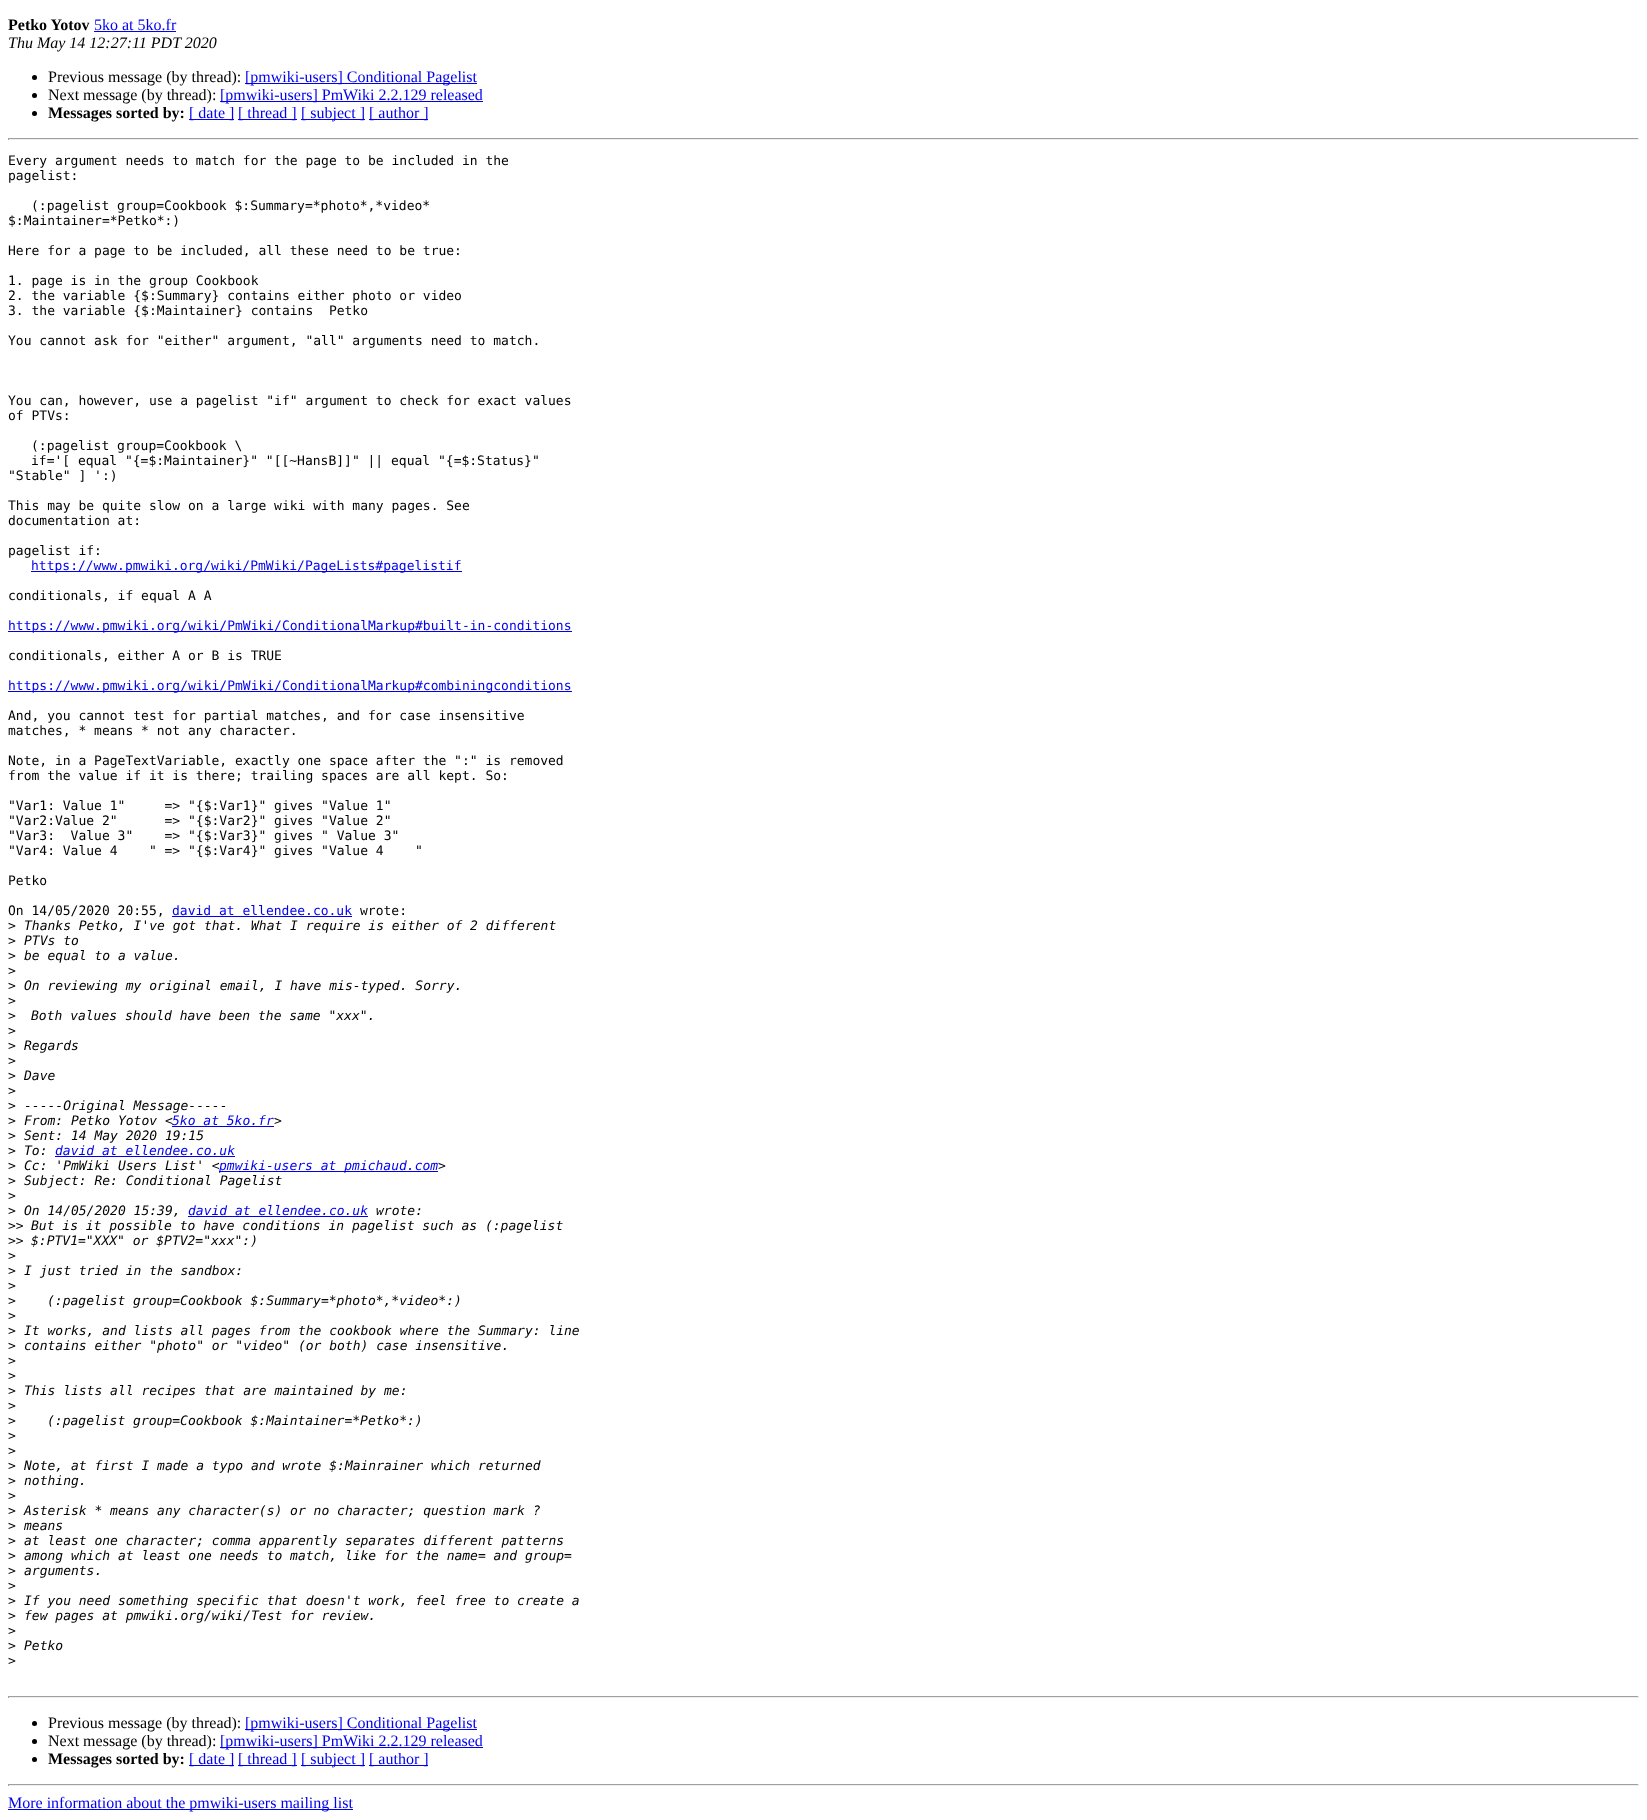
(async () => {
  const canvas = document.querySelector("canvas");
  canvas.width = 1647;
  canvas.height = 1820;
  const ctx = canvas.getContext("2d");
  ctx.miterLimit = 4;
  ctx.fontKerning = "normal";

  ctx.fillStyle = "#ffffff";
  ctx.fillRect(0, 0, 1647, 1820);
  ctx.fillStyle = "#0000ee";
  ctx.fillRect(94, 31, 82, 1);
  ctx.fillStyle = "#000000";
  ctx.beginPath();
  ctx.arc(34.5, 77.5, 2.5, 0, Math.PI * 2);
  ctx.fill();
  ctx.fillStyle = "#0000ee";
  ctx.fillRect(245, 83, 232, 1);
  ctx.fillStyle = "#000000";
  ctx.beginPath();
  ctx.arc(34.5, 95.5, 2.5, 0, Math.PI * 2);
  ctx.fill();
  ctx.fillStyle = "#0000ee";
  ctx.fillRect(220, 101, 263, 1);
  ctx.fillStyle = "#000000";
  ctx.beginPath();
  ctx.arc(34.5, 113.5, 2.5, 0, Math.PI * 2);
  ctx.fill();
  for (const [x, y, w, h, color] of [
    [189, 119, 45, 1, "#0000ee"],
    [238, 119, 59, 1, "#0000ee"],
    [301, 119, 64, 1, "#0000ee"],
    [369, 119, 59, 1, "#0000ee"],
    [8, 138, 1631, 1, "#9f9f9f"],
    [1638, 138, 1, 2, "#eeeeee"],
    [8, 139, 1631, 1, "#eeeeee"],
    [8, 138, 1, 2, "#9f9f9f"],
    [31, 571, 431, 1, "#0000ee"],
    [8, 631, 564, 1, "#0000ee"],
    [8, 691, 564, 1, "#0000ee"],
    [172, 916, 180, 1, "#0000ee"],
    [172, 1126, 102, 1, "#0000ee"],
    [55, 1156, 180, 1, "#0000ee"],
    [219, 1171, 219, 1, "#0000ee"],
    [188, 1216, 180, 1, "#0000ee"],
    [8, 1696, 1631, 1, "#9f9f9f"],
    [1638, 1696, 1, 2, "#eeeeee"],
    [8, 1697, 1631, 1, "#eeeeee"],
    [8, 1696, 1, 2, "#9f9f9f"],
  ]) {
    ctx.fillStyle = color;
    ctx.fillRect(x, y, w, h);
  }
  ctx.fillStyle = "#000000";
  ctx.beginPath();
  ctx.arc(34.5, 1723.5, 2.5, 0, Math.PI * 2);
  ctx.fill();
  ctx.fillStyle = "#0000ee";
  ctx.fillRect(245, 1729, 232, 1);
  ctx.fillStyle = "#000000";
  ctx.beginPath();
  ctx.arc(34.5, 1741.5, 2.5, 0, Math.PI * 2);
  ctx.fill();
  ctx.fillStyle = "#0000ee";
  ctx.fillRect(220, 1747, 263, 1);
  ctx.fillStyle = "#000000";
  ctx.beginPath();
  ctx.arc(34.5, 1759.5, 2.5, 0, Math.PI * 2);
  ctx.fill();
  for (const [x, y, w, h, color] of [
    [189, 1765, 45, 1, "#0000ee"],
    [238, 1765, 59, 1, "#0000ee"],
    [301, 1765, 64, 1, "#0000ee"],
    [369, 1765, 59, 1, "#0000ee"],
    [8, 1784, 1631, 1, "#9f9f9f"],
    [1638, 1784, 1, 2, "#eeeeee"],
    [8, 1785, 1631, 1, "#eeeeee"],
    [8, 1784, 1, 2, "#9f9f9f"],
    [8, 1809, 345, 1, "#0000ee"],
  ]) {
    ctx.fillStyle = color;
    ctx.fillRect(x, y, w, h);
  }
  ctx.font = "bold 16px Liberation Serif";
  ctx.fillStyle = "#000000";
  ctx.fillText("Petko Yotov", 8, 30);
  ctx.font = "16px Liberation Serif";
  ctx.fillStyle = "#0000ee";
  ctx.fillText("5ko at 5ko.fr", 94, 30);
  ctx.font = "italic 16px Liberation Serif";
  ctx.fillStyle = "#000000";
  ctx.fillText("Thu May 14 12:27:11 PDT 2020", 8, 48);
  ctx.font = "16px Liberation Serif";
  ctx.fillText("Previous message (by thread):", 48, 82);
  ctx.fillStyle = "#0000ee";
  ctx.fillText("[pmwiki-users] Conditional Pagelist", 245, 82);
  ctx.fillStyle = "#000000";
  ctx.fillText("Next message (by thread):", 48, 100);
  ctx.fillStyle = "#0000ee";
  ctx.fillText("[pmwiki-users] PmWiki 2.2.129 released", 220, 100);
  ctx.font = "bold 16px Liberation Serif";
  ctx.fillStyle = "#000000";
  ctx.fillText("Messages sorted by:", 48, 118);
  ctx.font = "16px Liberation Serif";
  ctx.fillStyle = "#0000ee";
  for (const [text, x, y] of [
    ["[ date ]", 189, 118],
    ["[ thread ]", 238, 118],
    ["[ subject ]", 301, 118],
    ["[ author ]", 369, 118],
  ]) {
    ctx.fillText(text, x, y);
  }
  ctx.font = "13px DejaVu Sans Mono";
  ctx.fillStyle = "#000000";
  for (const [text, x, y] of [
    ["Every argument needs to match for the page to be included in the", 8, 165],
    ["pagelist:", 8, 180],
    ["(:pagelist group=Cookbook $:Summary=*photo*,*video*", 31, 210],
    ["$:Maintainer=*Petko*:)", 8, 225],
    ["Here for a page to be included, all these need to be true:", 8, 255],
    ["1. page is in the group Cookbook", 8, 285],
    ["2. the variable {$:Summary} contains either photo or video", 8, 300],
    ["3. the variable {$:Maintainer} contains  Petko", 8, 315],
    ["You cannot ask for \"either\" argument, \"all\" arguments need to match.", 8, 345],
    ["You can, however, use a pagelist \"if\" argument to check for exact values", 8, 405],
    ["of PTVs:", 8, 420],
    ["(:pagelist group=Cookbook \\", 31, 450],
    ["if='[ equal \"{=$:Maintainer}\" \"[[~HansB]]\" || equal \"{=$:Status}\"", 31, 465],
    ["\"Stable\" ] ':)", 8, 480],
    ["This may be quite slow on a large wiki with many pages. See", 8, 510],
    ["documentation at:", 8, 525],
    ["pagelist if:", 8, 555],
  ]) {
    ctx.fillText(text, x, y);
  }
  ctx.fillStyle = "#0000ee";
  ctx.fillText("https://www.pmwiki.org/wiki/PmWiki/PageLists#pagelistif", 31, 570);
  ctx.fillStyle = "#000000";
  ctx.fillText("conditionals, if equal A A", 8, 600);
  ctx.fillStyle = "#0000ee";
  ctx.fillText("https://www.pmwiki.org/wiki/PmWiki/ConditionalMarkup#built-in-conditions", 8, 630);
  ctx.fillStyle = "#000000";
  ctx.fillText("conditionals, either A or B is TRUE", 8, 660);
  ctx.fillStyle = "#0000ee";
  ctx.fillText("https://www.pmwiki.org/wiki/PmWiki/ConditionalMarkup#combiningconditions", 8, 690);
  ctx.fillStyle = "#000000";
  for (const [text, x, y] of [
    ["And, you cannot test for partial matches, and for case insensitive", 8, 720],
    ["matches, * means * not any character.", 8, 735],
    ["Note, in a PageTextVariable, exactly one space after the \":\" is removed", 8, 765],
    ["from the value if it is there; trailing spaces are all kept. So:", 8, 780],
    ["\"Var1: Value 1\"     => \"{$:Var1}\" gives \"Value 1\"", 8, 810],
    ["\"Var2:Value 2\"      => \"{$:Var2}\" gives \"Value 2\"", 8, 825],
    ["\"Var3:  Value 3\"    => \"{$:Var3}\" gives \" Value 3\"", 8, 840],
    ["\"Var4: Value 4    \" => \"{$:Var4}\" gives \"Value 4    \"", 8, 855],
    ["Petko", 8, 885],
    ["On 14/05/2020 20:55,", 8, 915],
  ]) {
    ctx.fillText(text, x, y);
  }
  ctx.fillStyle = "#0000ee";
  ctx.fillText("david at ellendee.co.uk", 172, 915);
  ctx.fillStyle = "#000000";
  ctx.fillText("wrote:", 360, 915);
  ctx.fillText(">", 8, 930);
  ctx.font = "italic 13px DejaVu Sans Mono";
  ctx.fillText("Thanks Petko, I've got that. What I require is either of 2 different", 24, 930);
  ctx.font = "13px DejaVu Sans Mono";
  ctx.fillText(">", 8, 945);
  ctx.font = "italic 13px DejaVu Sans Mono";
  ctx.fillText("PTVs to", 24, 945);
  ctx.font = "13px DejaVu Sans Mono";
  ctx.fillText(">", 8, 960);
  ctx.font = "italic 13px DejaVu Sans Mono";
  ctx.fillText("be equal to a value.", 24, 960);
  ctx.font = "13px DejaVu Sans Mono";
  ctx.fillText(">", 8, 975);
  ctx.fillText(">", 8, 990);
  ctx.font = "italic 13px DejaVu Sans Mono";
  ctx.fillText("On reviewing my original email, I have mis-typed. Sorry.", 24, 990);
  ctx.font = "13px DejaVu Sans Mono";
  ctx.fillText(">", 8, 1005);
  ctx.fillText(">", 8, 1020);
  ctx.font = "italic 13px DejaVu Sans Mono";
  ctx.fillText("Both values should have been the same \"xxx\".", 31, 1020);
  ctx.font = "13px DejaVu Sans Mono";
  ctx.fillText(">", 8, 1035);
  ctx.fillText(">", 8, 1050);
  ctx.font = "italic 13px DejaVu Sans Mono";
  ctx.fillText("Regards", 24, 1050);
  ctx.font = "13px DejaVu Sans Mono";
  ctx.fillText(">", 8, 1065);
  ctx.fillText(">", 8, 1080);
  ctx.font = "italic 13px DejaVu Sans Mono";
  ctx.fillText("Dave", 24, 1080);
  ctx.font = "13px DejaVu Sans Mono";
  ctx.fillText(">", 8, 1095);
  ctx.fillText(">", 8, 1110);
  ctx.font = "italic 13px DejaVu Sans Mono";
  ctx.fillText("-----Original Message-----", 24, 1110);
  ctx.font = "13px DejaVu Sans Mono";
  ctx.fillText(">", 8, 1125);
  ctx.font = "italic 13px DejaVu Sans Mono";
  ctx.fillText("From: Petko Yotov <", 24, 1125);
  ctx.fillStyle = "#0000ee";
  ctx.fillText("5ko at 5ko.fr", 172, 1125);
  ctx.fillStyle = "#000000";
  ctx.fillText(">", 274, 1125);
  ctx.font = "13px DejaVu Sans Mono";
  ctx.fillText(">", 8, 1140);
  ctx.font = "italic 13px DejaVu Sans Mono";
  ctx.fillText("Sent: 14 May 2020 19:15", 24, 1140);
  ctx.font = "13px DejaVu Sans Mono";
  ctx.fillText(">", 8, 1155);
  ctx.font = "italic 13px DejaVu Sans Mono";
  ctx.fillText("To:", 24, 1155);
  ctx.fillStyle = "#0000ee";
  ctx.fillText("david at ellendee.co.uk", 55, 1155);
  ctx.font = "13px DejaVu Sans Mono";
  ctx.fillStyle = "#000000";
  ctx.fillText(">", 8, 1170);
  ctx.font = "italic 13px DejaVu Sans Mono";
  ctx.fillText("Cc: 'PmWiki Users List' <", 24, 1170);
  ctx.fillStyle = "#0000ee";
  ctx.fillText("pmwiki-users at pmichaud.com", 219, 1170);
  ctx.fillStyle = "#000000";
  ctx.fillText(">", 438, 1170);
  ctx.font = "13px DejaVu Sans Mono";
  ctx.fillText(">", 8, 1185);
  ctx.font = "italic 13px DejaVu Sans Mono";
  ctx.fillText("Subject: Re: Conditional Pagelist", 24, 1185);
  ctx.font = "13px DejaVu Sans Mono";
  ctx.fillText(">", 8, 1200);
  ctx.fillText(">", 8, 1215);
  ctx.font = "italic 13px DejaVu Sans Mono";
  ctx.fillText("On 14/05/2020 15:39,", 24, 1215);
  ctx.fillStyle = "#0000ee";
  ctx.fillText("david at ellendee.co.uk", 188, 1215);
  ctx.fillStyle = "#000000";
  ctx.fillText("wrote:", 376, 1215);
  ctx.font = "13px DejaVu Sans Mono";
  ctx.fillText(">>", 8, 1230);
  ctx.font = "italic 13px DejaVu Sans Mono";
  ctx.fillText("But is it possible to have conditions in pagelist such as (:pagelist", 31, 1230);
  ctx.font = "13px DejaVu Sans Mono";
  ctx.fillText(">>", 8, 1245);
  ctx.font = "italic 13px DejaVu Sans Mono";
  ctx.fillText("$:PTV1=\"XXX\" or $PTV2=\"xxx\":)", 31, 1245);
  ctx.font = "13px DejaVu Sans Mono";
  ctx.fillText(">", 8, 1260);
  ctx.fillText(">", 8, 1275);
  ctx.font = "italic 13px DejaVu Sans Mono";
  ctx.fillText("I just tried in the sandbox:", 24, 1275);
  ctx.font = "13px DejaVu Sans Mono";
  ctx.fillText(">", 8, 1290);
  ctx.fillText(">", 8, 1305);
  ctx.font = "italic 13px DejaVu Sans Mono";
  ctx.fillText("(:pagelist group=Cookbook $:Summary=*photo*,*video*:)", 47, 1305);
  ctx.font = "13px DejaVu Sans Mono";
  ctx.fillText(">", 8, 1320);
  ctx.fillText(">", 8, 1335);
  ctx.font = "italic 13px DejaVu Sans Mono";
  ctx.fillText("It works, and lists all pages from the cookbook where the Summary: line", 24, 1335);
  ctx.font = "13px DejaVu Sans Mono";
  ctx.fillText(">", 8, 1350);
  ctx.font = "italic 13px DejaVu Sans Mono";
  ctx.fillText("contains either \"photo\" or \"video\" (or both) case insensitive.", 24, 1350);
  ctx.font = "13px DejaVu Sans Mono";
  for (const [text, x, y] of [
    [">", 8, 1365],
    [">", 8, 1380],
    [">", 8, 1395],
  ]) {
    ctx.fillText(text, x, y);
  }
  ctx.font = "italic 13px DejaVu Sans Mono";
  ctx.fillText("This lists all recipes that are maintained by me:", 24, 1395);
  ctx.font = "13px DejaVu Sans Mono";
  ctx.fillText(">", 8, 1410);
  ctx.fillText(">", 8, 1425);
  ctx.font = "italic 13px DejaVu Sans Mono";
  ctx.fillText("(:pagelist group=Cookbook $:Maintainer=*Petko*:)", 47, 1425);
  ctx.font = "13px DejaVu Sans Mono";
  for (const [text, x, y] of [
    [">", 8, 1440],
    [">", 8, 1455],
    [">", 8, 1470],
  ]) {
    ctx.fillText(text, x, y);
  }
  ctx.font = "italic 13px DejaVu Sans Mono";
  ctx.fillText("Note, at first I made a typo and wrote $:Mainrainer which returned", 24, 1470);
  ctx.font = "13px DejaVu Sans Mono";
  ctx.fillText(">", 8, 1485);
  ctx.font = "italic 13px DejaVu Sans Mono";
  ctx.fillText("nothing.", 24, 1485);
  ctx.font = "13px DejaVu Sans Mono";
  ctx.fillText(">", 8, 1500);
  ctx.fillText(">", 8, 1515);
  ctx.font = "italic 13px DejaVu Sans Mono";
  ctx.fillText("Asterisk * means any character(s) or no character; question mark ?", 24, 1515);
  ctx.font = "13px DejaVu Sans Mono";
  ctx.fillText(">", 8, 1530);
  ctx.font = "italic 13px DejaVu Sans Mono";
  ctx.fillText("means", 24, 1530);
  ctx.font = "13px DejaVu Sans Mono";
  ctx.fillText(">", 8, 1545);
  ctx.font = "italic 13px DejaVu Sans Mono";
  ctx.fillText("at least one character; comma apparently separates different patterns", 24, 1545);
  ctx.font = "13px DejaVu Sans Mono";
  ctx.fillText(">", 8, 1560);
  ctx.font = "italic 13px DejaVu Sans Mono";
  ctx.fillText("among which at least one needs to match, like for the name= and group=", 24, 1560);
  ctx.font = "13px DejaVu Sans Mono";
  ctx.fillText(">", 8, 1575);
  ctx.font = "italic 13px DejaVu Sans Mono";
  ctx.fillText("arguments.", 24, 1575);
  ctx.font = "13px DejaVu Sans Mono";
  ctx.fillText(">", 8, 1590);
  ctx.fillText(">", 8, 1605);
  ctx.font = "italic 13px DejaVu Sans Mono";
  ctx.fillText("If you need something specific that doesn't work, feel free to create a", 24, 1605);
  ctx.font = "13px DejaVu Sans Mono";
  ctx.fillText(">", 8, 1620);
  ctx.font = "italic 13px DejaVu Sans Mono";
  ctx.fillText("few pages at pmwiki.org/wiki/Test for review.", 24, 1620);
  ctx.font = "13px DejaVu Sans Mono";
  ctx.fillText(">", 8, 1635);
  ctx.fillText(">", 8, 1650);
  ctx.font = "italic 13px DejaVu Sans Mono";
  ctx.fillText("Petko", 24, 1650);
  ctx.font = "13px DejaVu Sans Mono";
  ctx.fillText(">", 8, 1665);
  ctx.font = "16px Liberation Serif";
  ctx.fillText("Previous message (by thread):", 48, 1728);
  ctx.fillStyle = "#0000ee";
  ctx.fillText("[pmwiki-users] Conditional Pagelist", 245, 1728);
  ctx.fillStyle = "#000000";
  ctx.fillText("Next message (by thread):", 48, 1746);
  ctx.fillStyle = "#0000ee";
  ctx.fillText("[pmwiki-users] PmWiki 2.2.129 released", 220, 1746);
  ctx.font = "bold 16px Liberation Serif";
  ctx.fillStyle = "#000000";
  ctx.fillText("Messages sorted by:", 48, 1764);
  ctx.font = "16px Liberation Serif";
  ctx.fillStyle = "#0000ee";
  for (const [text, x, y] of [
    ["[ date ]", 189, 1764],
    ["[ thread ]", 238, 1764],
    ["[ subject ]", 301, 1764],
    ["[ author ]", 369, 1764],
    ["More information about the pmwiki-users mailing list", 8, 1808],
  ]) {
    ctx.fillText(text, x, y);
  }
})();
